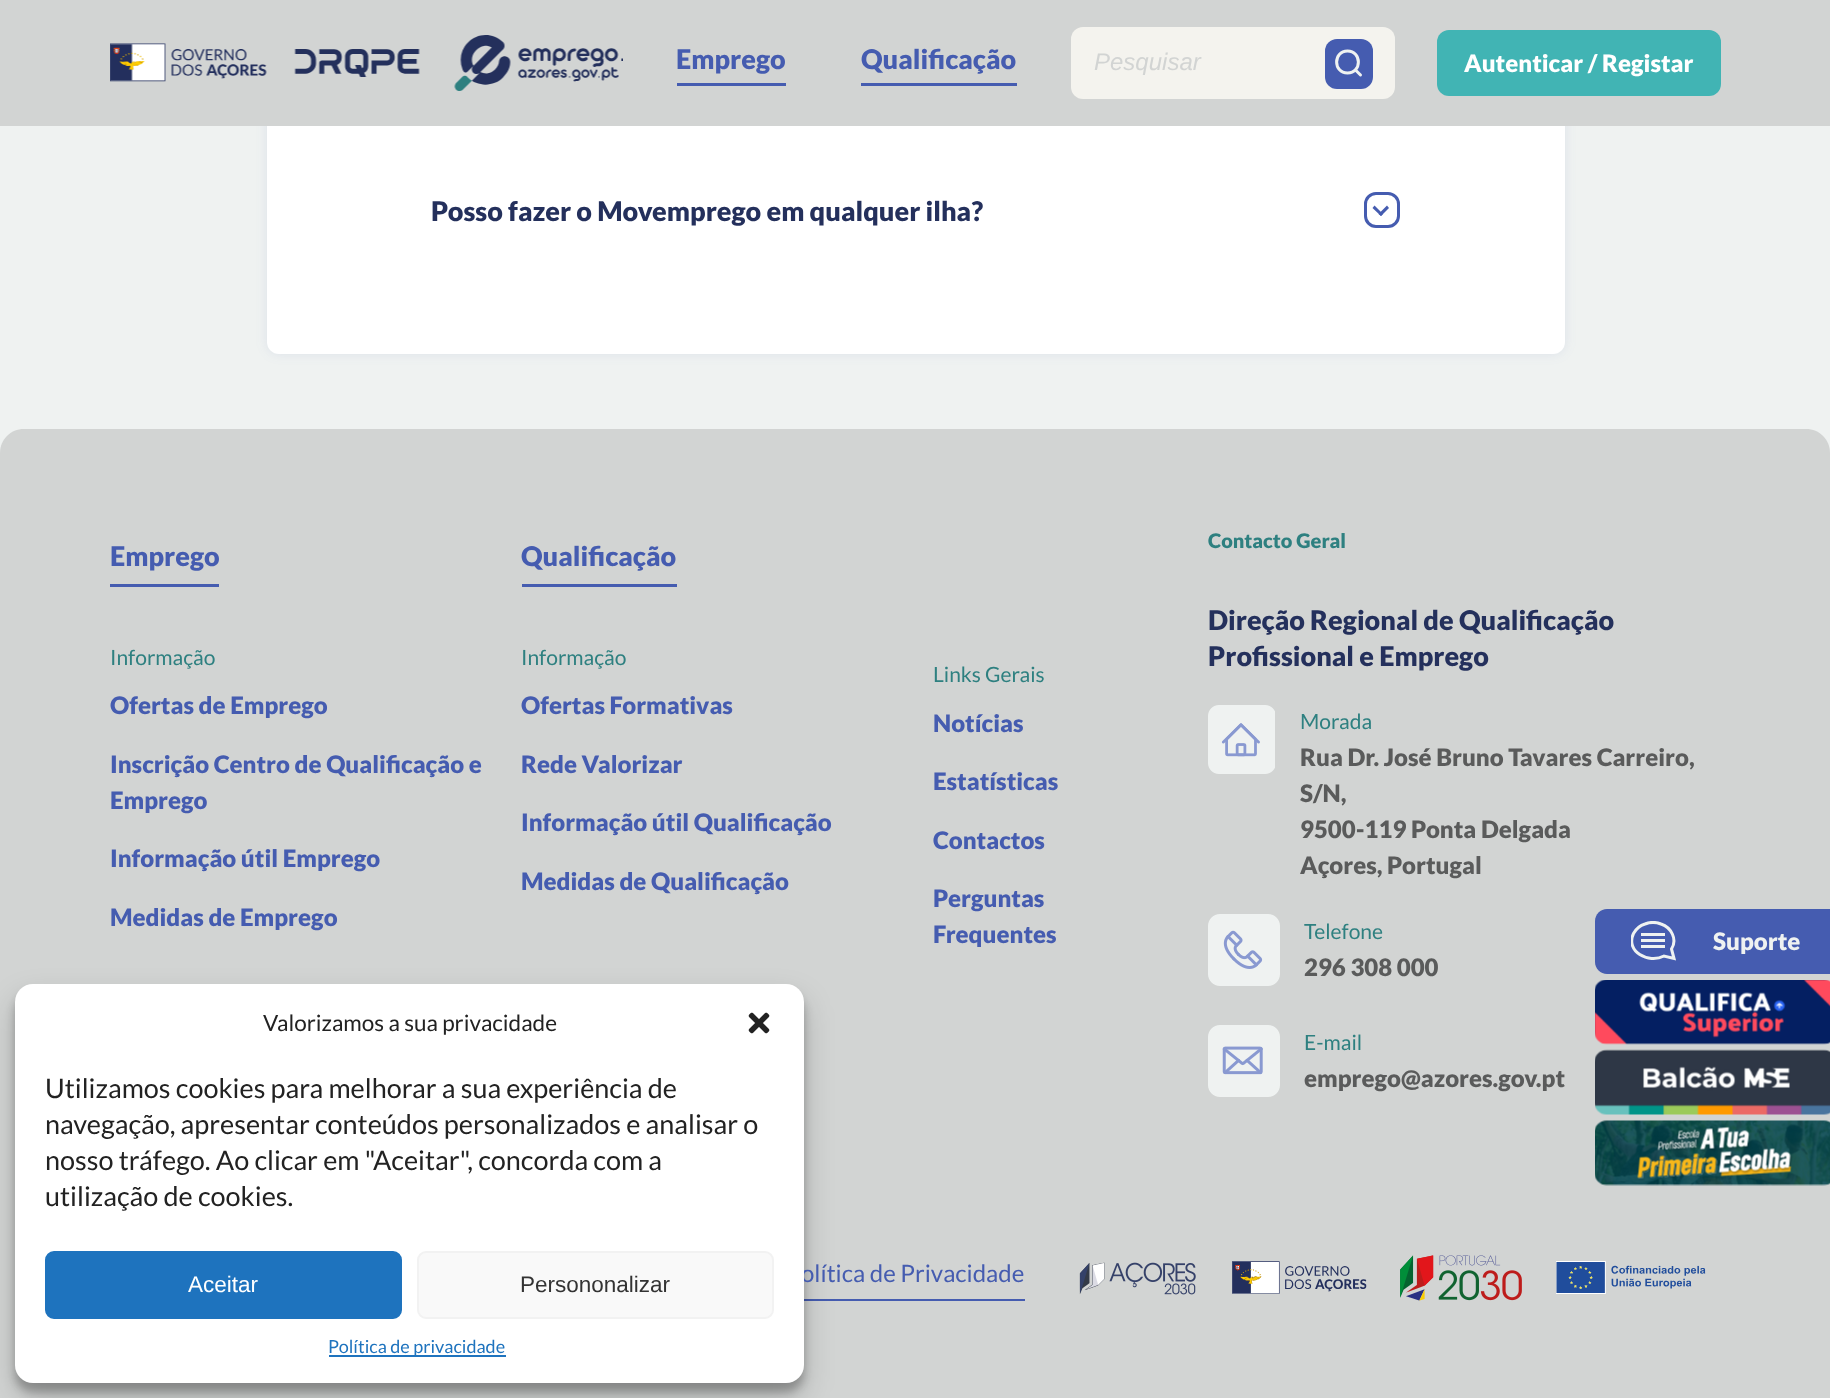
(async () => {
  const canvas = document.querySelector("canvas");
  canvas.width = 1830;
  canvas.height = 1398;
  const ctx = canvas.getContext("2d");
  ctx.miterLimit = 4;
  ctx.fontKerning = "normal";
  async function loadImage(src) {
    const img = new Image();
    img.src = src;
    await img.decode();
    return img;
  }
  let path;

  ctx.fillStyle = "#eff2f1";
  ctx.fillRect(0, 0, 1830, 1398);
  ctx.fillStyle = "rgba(69, 92, 176, 0.1)";
  ctx.filter = "blur(6px)";
  ctx.beginPath();
  ctx.roundRect(267, -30, 1298, 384, 12);
  ctx.fill();
  ctx.filter = "none";
  ctx.fillStyle = "#ffffff";
  ctx.beginPath();
  ctx.roundRect(267, -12, 1298, 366, 12);
  ctx.fill();
  ctx.fillStyle = "#d2d4d3";
  ctx.fillRect(0, 0, 1830, 126);
  ctx.drawImage(await loadImage("img/1.png"), 110, 35, 513, 56);
  ctx.fillStyle = "#455cb0";
  ctx.fillRect(677, 83, 109, 3);
  ctx.fillRect(861, 83, 156, 3);
  ctx.fillStyle = "#f4f3ee";
  ctx.beginPath();
  ctx.roundRect(1071, 27, 324, 72, 12);
  ctx.fill();
  ctx.fillStyle = "#455cb0";
  ctx.beginPath();
  ctx.roundRect(1325, 39, 48, 50, 12);
  ctx.fill();
  path = new Path2D("M1360.5 75L1355.5 70M1347.5 73C1333 73 1333 51 1347.5 51C1362 51 1362 73 1347.5 73Z");
  ctx.strokeStyle = "#eff2f1";
  ctx.lineWidth = 3;
  ctx.lineCap = "round";
  ctx.lineJoin = "round";
  ctx.stroke(path);
  ctx.fillStyle = "#41b4b4";
  ctx.beginPath();
  ctx.roundRect(1437, 30, 284, 66, 12);
  ctx.fill();
  ctx.beginPath();
  ctx.roundRect(1365.5, 193.5, 33, 33, 10.5);
  ctx.strokeStyle = "#455cb0";
  ctx.lineJoin = "miter";
  ctx.stroke();
  ctx.fillStyle = "#455cb0";
  path = new Path2D("M1387 205.5L1389 208L1381 216L1378.5 214Z");
  ctx.fill(path);
  path = new Path2D("M1374.5 205.5L1383 214L1381 216L1372.5 208Z");
  ctx.fill(path);
  ctx.fillStyle = "#d2d4d3";
  path = new Path2D("M24 429H1806C1819.5 429 1830 439.5 1830 453V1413H0V453C0 439.5 10.5 429 24 429Z");
  ctx.fill(path);
  ctx.fillStyle = "#455cb0";
  ctx.fillRect(110, 584, 109, 3);
  ctx.fillRect(522, 584, 155, 3);
  ctx.drawImage(await loadImage("img/2.png"), 1208, 705, 67, 69);
  ctx.drawImage(await loadImage("img/3.png"), 1208, 914, 72, 72);
  ctx.drawImage(await loadImage("img/4.png"), 1208, 1025, 72, 72);
  ctx.fillRect(804, 1299, 221, 2);
  ctx.drawImage(await loadImage("img/5.png"), 1079, 1262, 117, 33);
  ctx.drawImage(await loadImage("img/6.png"), 1232, 1261, 135, 33);
  ctx.drawImage(await loadImage("img/7.png"), 1400, 1255, 122, 46);
  ctx.drawImage(await loadImage("img/8.png"), 1556, 1261, 150, 33);
  path = new Path2D("M1607 909H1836V974H1607C1600.5 974 1595 968.5 1595 962V921C1595 914.5 1600.5 909 1607 909Z");
  ctx.fill(path);
  for (const [x, y, w, h, color] of [
    [1641, 933, 24, 3, "#eff2f1"],
    [1641, 939, 24, 3, "#eff2f1"],
    [1641, 945, 24, 3, "#eff2f1"],
  ]) {
    ctx.fillStyle = color;
    ctx.fillRect(x, y, w, h);
  }
  ctx.save();
  ctx.beginPath();
  ctx.rect(1631, 921, 46, 41);
  ctx.clip();
  path = new Path2D("M1671.5 949C1677.5 939.5 1671.5 927.5 1661 924C1656 922 1650 922 1645 924C1640 925.5 1636 929 1633.5 933.5C1625 951.5 1648.5 964 1664 956L1674 958.5Z");
  ctx.strokeStyle = "#eff2f1";
  ctx.lineCap = "square";
  ctx.stroke(path);
  ctx.restore();
  ctx.drawImage(await loadImage("img/9.png"), 1595, 980, 235, 65);
  ctx.drawImage(await loadImage("img/10.png"), 1595, 1049, 235, 66);
  ctx.drawImage(await loadImage("img/11.png"), 1595, 1120, 235, 66);
  ctx.fillStyle = "rgba(0, 0, 0, 0.23)";
  ctx.filter = "blur(4.5px)";
  ctx.beginPath();
  ctx.roundRect(15, 993, 789, 399, 18);
  ctx.fill();
  ctx.filter = "none";
  ctx.fillStyle = "rgba(0, 0, 0, 0.19)";
  ctx.filter = "blur(15px)";
  ctx.beginPath();
  ctx.roundRect(15, 999, 789, 399, 18);
  ctx.fill();
  ctx.filter = "none";
  ctx.font = "900 27px Lato";
  ctx.fillStyle = "#455cb0";
  ctx.fillText("Emprego", 676, 69);
  ctx.fillText("Qualificação", 861, 69);
  ctx.font = "italic 24px Liberation Sans";
  ctx.fillStyle = "#d2d4d3";
  ctx.fillText("Pesquisar", 1094, 70);
  ctx.font = "900 24px Lato";
  ctx.fillStyle = "#ffffff";
  ctx.fillText("Autenticar / Registar", 1464, 72);
  ctx.font = "900 27px Lato";
  ctx.fillStyle = "#24305c";
  ctx.fillText("Posso fazer o Movemprego em qualquer ilha?", 431, 221);
  ctx.fillStyle = "#455cb0";
  ctx.fillText("Emprego", 110, 566);
  ctx.font = "21px Lato";
  ctx.fillStyle = "#2e8080";
  ctx.fillText("Informação", 110, 665);
  ctx.font = "900 24px Lato";
  ctx.fillStyle = "#455cb0";
  for (const [text, x, y] of [
    ["Ofertas de Emprego", 110, 714],
    ["Inscrição Centro de Qualificação e", 110, 773],
    ["Emprego", 110, 809],
    ["Informação útil Emprego", 110, 867],
    ["Medidas de Emprego", 110, 926],
  ]) {
    ctx.fillText(text, x, y);
  }
  ctx.font = "900 27px Lato";
  ctx.fillText("Qualificação", 521, 566);
  ctx.font = "21px Lato";
  ctx.fillStyle = "#2e8080";
  ctx.fillText("Informação", 521, 665);
  ctx.font = "900 24px Lato";
  ctx.fillStyle = "#455cb0";
  for (const [text, x, y] of [
    ["Ofertas Formativas", 521, 714],
    ["Rede Valorizar", 521, 773],
    ["Informação útil Qualificação", 521, 831],
    ["Medidas de Qualificação", 521, 890],
  ]) {
    ctx.fillText(text, x, y);
  }
  ctx.font = "21px Lato";
  ctx.fillStyle = "#2e8080";
  ctx.fillText("Links Gerais", 933, 682);
  ctx.font = "900 24px Lato";
  ctx.fillStyle = "#455cb0";
  for (const [text, x, y] of [
    ["Notícias", 933, 732],
    ["Estatísticas", 933, 790],
    ["Contactos", 933, 849],
    ["Perguntas", 933, 907],
    ["Frequentes", 933, 943],
  ]) {
    ctx.fillText(text, x, y);
  }
  ctx.font = "900 20px Lato";
  ctx.fillStyle = "#2e8080";
  ctx.fillText("Contacto Geral", 1208, 548);
  ctx.font = "900 27px Lato";
  ctx.fillStyle = "#24305c";
  ctx.fillText("Direção Regional de Qualificação", 1208, 630);
  ctx.fillText("Profissional e Emprego", 1208, 666);
  ctx.font = "21px Lato";
  ctx.fillStyle = "#2e8080";
  ctx.fillText("Morada", 1300, 729);
  ctx.font = "900 24px Lato";
  ctx.fillStyle = "#5a5b5b";
  for (const [text, x, y] of [
    ["Rua Dr. José Bruno Tavares Carreiro,", 1300, 766],
    ["S/N,", 1300, 802],
    ["9500-119 Ponta Delgada", 1300, 838],
    ["Açores, Portugal", 1300, 874],
  ]) {
    ctx.fillText(text, x, y);
  }
  ctx.font = "21px Lato";
  ctx.fillStyle = "#2e8080";
  ctx.fillText("Telefone", 1304, 939);
  ctx.font = "900 24px Lato";
  ctx.fillStyle = "#5a5b5b";
  ctx.fillText("296 308 000", 1304, 976);
  ctx.font = "21px Lato";
  ctx.fillStyle = "#2e8080";
  ctx.fillText("E-mail", 1304, 1050);
  ctx.font = "900 24px Lato";
  ctx.fillStyle = "#5a5b5b";
  ctx.fillText("emprego@azores.gov.pt", 1304, 1087);
  ctx.font = "24px Lato";
  ctx.fillStyle = "#455cb0";
  ctx.fillText("olítica de Privacidade", 801, 1282);
  ctx.font = "900 24px Lato";
  ctx.fillStyle = "#eff2f1";
  ctx.fillText("Suporte", 1713, 950);
  ctx.fillStyle = "#ffffff";
  ctx.beginPath();
  ctx.roundRect(15, 984, 789, 399, 18);
  ctx.fill();
  ctx.font = "22.5px Lato";
  ctx.fillStyle = "#222222";
  ctx.fillText("Valorizamos a sua privacidade", 263, 1031);
  ctx.drawImage(await loadImage("img/12.png"), 748, 1012, 22, 22);
  ctx.font = "27px Lato";
  for (const [text, x, y] of [
    ["Utilizamos cookies para melhorar a sua experiência de", 45, 1098],
    ["navegação, apresentar conteúdos personalizados e analisar o", 45, 1134],
    ["nosso tráfego. Ao clicar em \"Aceitar\", concorda com a", 45, 1170],
    ["utilização de cookies.", 45, 1206],
  ]) {
    ctx.fillText(text, x, y);
  }
  ctx.fillStyle = "#1e73be";
  ctx.beginPath();
  ctx.roundRect(46, 1252, 355, 66, 8);
  ctx.fill();
  ctx.strokeStyle = "#1e73be";
  ctx.lineWidth = 2;
  ctx.stroke();
  ctx.font = "22.5px Liberation Sans";
  ctx.fillStyle = "#ffffff";
  ctx.fillText("Aceitar", 188, 1292);
  ctx.fillStyle = "#f9f9f9";
  ctx.beginPath();
  ctx.roundRect(418, 1252, 355, 66, 8);
  ctx.fill();
  ctx.strokeStyle = "#f2f2f2";
  ctx.stroke();
  ctx.fillStyle = "#333333";
  ctx.fillText("Persononalizar", 520, 1292);
  ctx.fillStyle = "#1e73be";
  ctx.fillRect(329, 1355, 177, 2);
  ctx.font = "18px Lato";
  ctx.fillText("Política de privacidade", 328, 1353);
})();
